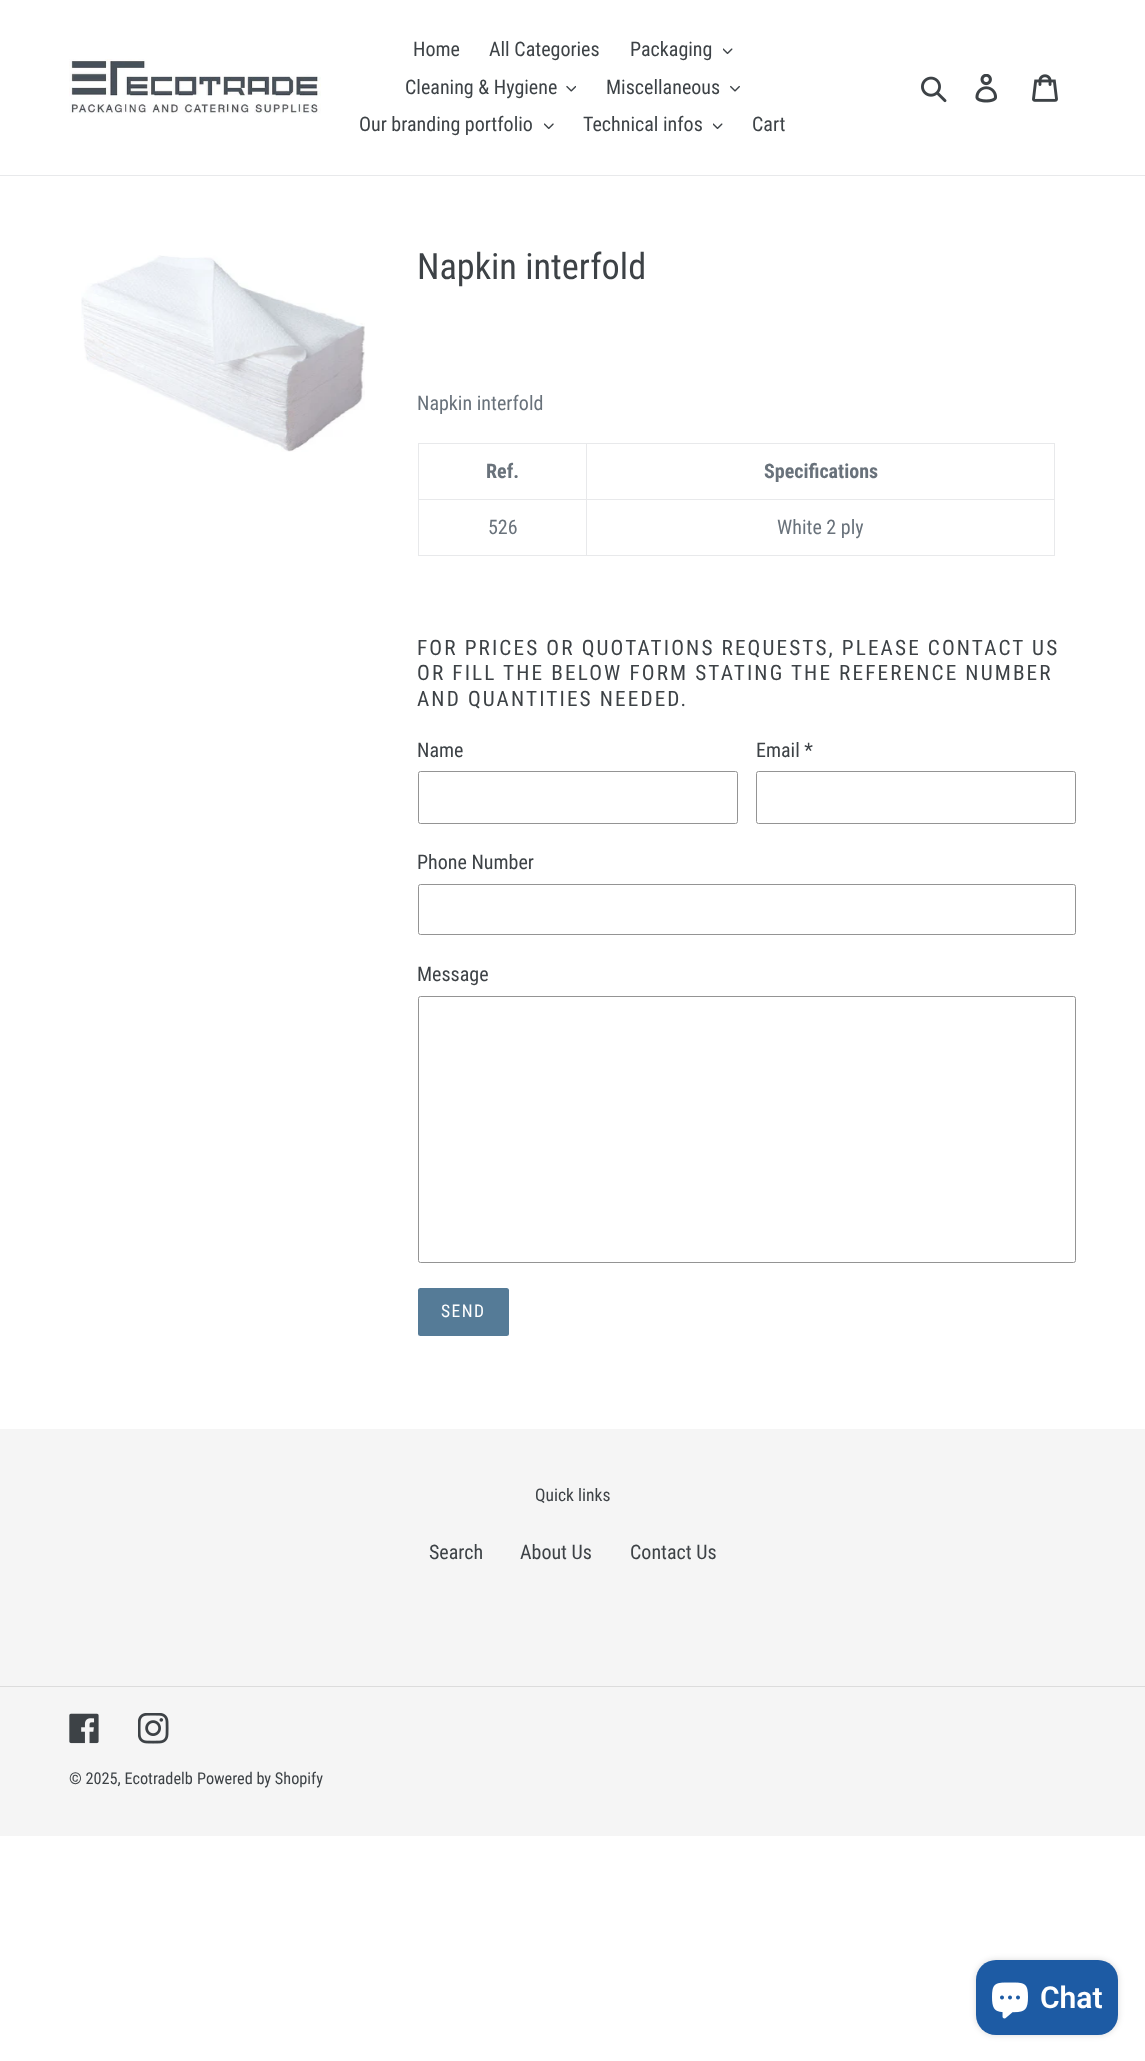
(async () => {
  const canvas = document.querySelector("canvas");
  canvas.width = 1145;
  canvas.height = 2061;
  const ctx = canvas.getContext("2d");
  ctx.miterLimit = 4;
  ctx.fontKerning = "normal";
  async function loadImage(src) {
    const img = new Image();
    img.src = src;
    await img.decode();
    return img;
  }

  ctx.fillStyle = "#ffffff";
  ctx.fillRect(0, 0, 1145, 2061);
  ctx.fillStyle = "#e8e9eb";
  ctx.fillRect(0, 175, 1145, 1);
  ctx.drawImage(await loadImage("img/1.png"), 69, 59, 252, 55);
  ctx.drawImage(await loadImage("img/2.png"), 723, 48, 10, 7);
  ctx.drawImage(await loadImage("img/3.png"), 566, 85, 10, 7);
  ctx.drawImage(await loadImage("img/4.png"), 730, 85, 10, 7);
  ctx.drawImage(await loadImage("img/5.png"), 544, 123, 10, 7);
  ctx.drawImage(await loadImage("img/2.png"), 713, 123, 10, 7);
  ctx.drawImage(await loadImage("img/6.png"), 921, 76, 26, 27);
  ctx.drawImage(await loadImage("img/7.png"), 975, 74, 22, 29);
  ctx.drawImage(await loadImage("img/8.png"), 1032, 74, 26, 28);
  ctx.drawImage(await loadImage("img/9.png"), 81, 255, 284, 197);
  for (const [x, y, w, h, color] of [
    [586, 443, 469, 1, "#e8e9eb"],
    [586, 499, 469, 1, "#e8e9eb"],
    [1054, 499, 1, 57, "#e8e9eb"],
    [586, 555, 469, 1, "#e8e9eb"],
    [586, 499, 1, 57, "#e8e9eb"],
    [418, 499, 170, 1, "#e8e9eb"],
    [586, 443, 1, 57, "#e8e9eb"],
    [418, 443, 170, 1, "#e8e9eb"],
    [418, 555, 170, 1, "#e8e9eb"],
    [418, 499, 1, 57, "#e8e9eb"],
    [418, 443, 1, 57, "#e8e9eb"],
    [1054, 443, 1, 57, "#e8e9eb"],
  ]) {
    ctx.fillStyle = color;
    ctx.fillRect(x, y, w, h);
  }
  ctx.beginPath();
  ctx.roundRect(418.5, 771.5, 319, 52, 2);
  ctx.strokeStyle = "#949494";
  ctx.stroke();
  ctx.beginPath();
  ctx.roundRect(756.5, 771.5, 319, 52, 2);
  ctx.stroke();
  ctx.beginPath();
  ctx.roundRect(418.5, 884.5, 657, 50, 2);
  ctx.stroke();
  ctx.beginPath();
  ctx.roundRect(418.5, 996.5, 657, 266, 2);
  ctx.stroke();
  ctx.fillStyle = "#557b97";
  ctx.beginPath();
  ctx.roundRect(418, 1288, 91, 48, 2.5);
  ctx.fill();
  ctx.fillStyle = "#f5f5f5";
  ctx.fillRect(0, 1429, 1145, 407);
  ctx.fillStyle = "#dcdcdc";
  ctx.fillRect(0, 1686, 1145, 1);
  ctx.drawImage(await loadImage("img/10.png"), 69, 1713, 30, 31);
  ctx.drawImage(await loadImage("img/11.png"), 138, 1713, 31, 31);
  ctx.fillStyle = "rgba(0, 0, 0, 0.15)";
  ctx.filter = "blur(3px)";
  ctx.beginPath();
  ctx.roundRect(976, 1960, 142, 75, 20);
  ctx.fill();
  ctx.filter = "none";
  ctx.fillStyle = "#1d5ba4";
  ctx.beginPath();
  ctx.roundRect(976, 1960, 142, 75, 20);
  ctx.fill();
  ctx.drawImage(await loadImage("img/12.png"), 992, 1982, 36, 37);
  ctx.font = "20px Roboto Condensed";
  ctx.fillStyle = "#3d4246";
  for (const [text, x, y] of [
    ["Home", 413, 56],
    ["All Categories", 489, 56],
    ["Packaging", 630, 56],
    ["Cleaning & Hygiene", 405, 94],
    ["Miscellaneous", 606, 94],
    ["Our branding portfolio", 359, 131],
    ["Technical infos", 583, 131],
    ["Cart", 752, 131],
  ]) {
    ctx.fillText(text, x, y);
  }
  ctx.font = "36.25px Roboto Condensed";
  ctx.fillText("Napkin interfold", 417, 279);
  ctx.font = "20px Roboto Condensed";
  ctx.fillStyle = "#69727b";
  ctx.fillText("Napkin interfold", 417, 410);
  ctx.font = "bold 20px Roboto Condensed";
  ctx.fillText("Ref.", 486, 478);
  ctx.fillText("Specifications", 764, 478);
  ctx.font = "20px Roboto Condensed";
  ctx.fillText("526", 488, 534);
  ctx.fillText("White 2 ply", 777, 534);
  ctx.letterSpacing = "2.12px";
  ctx.font = "21.25px Roboto Condensed";
  ctx.fillStyle = "#3d4246";
  for (const [text, x, y] of [
    ["FOR PRICES OR QUOTATIONS REQUESTS, PLEASE CONTACT US", 417, 655],
    ["OR FILL THE BELOW FORM STATING THE REFERENCE NUMBER", 417, 680],
    ["AND QUANTITIES NEEDED.", 417, 706],
  ]) {
    ctx.fillText(text, x, y);
  }
  ctx.letterSpacing = "0px";
  ctx.font = "20px Roboto Condensed";
  for (const [text, x, y] of [
    ["Name", 417, 757],
    ["Email *", 756, 757],
    ["Phone Number", 417, 869],
    ["Message", 417, 981],
  ]) {
    ctx.fillText(text, x, y);
  }
  ctx.letterSpacing = "1.5px";
  ctx.font = "17.5px Roboto Condensed";
  ctx.fillStyle = "#ffffff";
  ctx.fillText("SEND", 441, 1317);
  ctx.letterSpacing = "0px";
  ctx.fillStyle = "#3d4246";
  ctx.fillText("Quick links", 535, 1501);
  ctx.font = "20px Roboto Condensed";
  for (const [text, x, y] of [
    ["Search", 429, 1559],
    ["About Us", 520, 1559],
    ["Contact Us", 630, 1559],
  ]) {
    ctx.fillText(text, x, y);
  }
  ctx.font = "16.25px Roboto Condensed";
  ctx.fillText("© 2025, Ecotradelb", 69, 1784);
  ctx.fillText("Powered by Shopify", 197, 1784);
  ctx.font = "600 30px Roboto";
  ctx.fillStyle = "#ffffff";
  ctx.fillText("Chat", 1040, 2008);
})();
